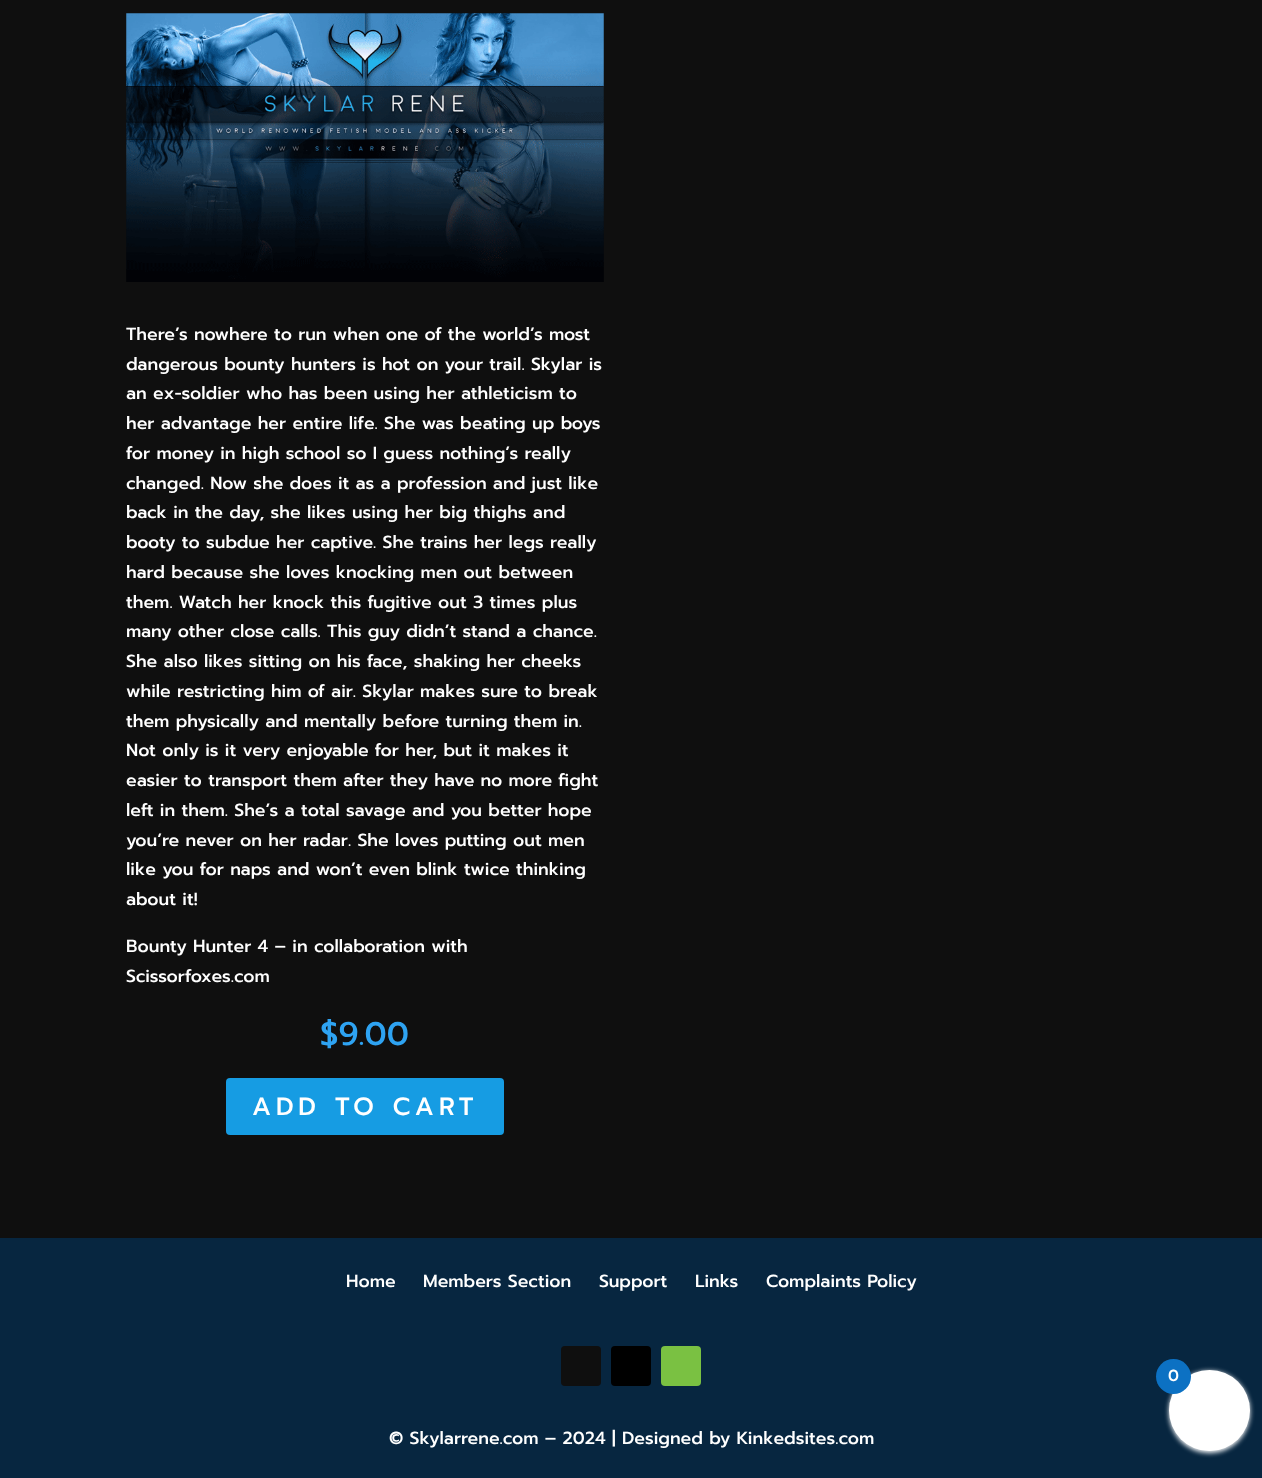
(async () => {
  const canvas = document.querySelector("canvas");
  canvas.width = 1262;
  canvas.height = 1478;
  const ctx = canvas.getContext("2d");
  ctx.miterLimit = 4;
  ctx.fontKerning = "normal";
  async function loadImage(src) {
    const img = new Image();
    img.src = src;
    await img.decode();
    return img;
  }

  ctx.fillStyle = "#0f0f0f";
  ctx.fillRect(0, 0, 1262, 1478);
  ctx.drawImage(await loadImage("img/1.png"), 126, 13, 478, 269);
  ctx.fillStyle = "#169ce3";
  ctx.beginPath();
  ctx.roundRect(226, 1078, 278, 57, 4);
  ctx.fill();
  ctx.fillStyle = "#072640";
  ctx.fillRect(0, 1238, 1262, 240);
  ctx.fillStyle = "#0f0f0f";
  ctx.beginPath();
  ctx.roundRect(561, 1346, 40, 40, 4);
  ctx.fill();
  ctx.fillStyle = "#000000";
  ctx.beginPath();
  ctx.roundRect(611, 1346, 40, 40, 4);
  ctx.fill();
  ctx.fillStyle = "#7ac142";
  ctx.beginPath();
  ctx.roundRect(661, 1346, 40, 40, 4);
  ctx.fill();
  ctx.fillStyle = "#ffffff";
  ctx.filter = "blur(2.5px)";
  ctx.beginPath();
  ctx.roundRect(1169, 1371, 81, 82, 40.5);
  ctx.fill();
  ctx.filter = "none";
  ctx.beginPath();
  ctx.arc(1209.5, 1410.5, 40.5, 0, Math.PI * 2);
  ctx.fill();
  ctx.fillStyle = "#0c71c3";
  ctx.beginPath();
  ctx.arc(1173.5, 1376.5, 17.5, 0, Math.PI * 2);
  ctx.fill();
  ctx.font = "500 17.5px Prompt";
  ctx.fillStyle = "#ffffff";
  for (const [text, x, y] of [
    ["There’s nowhere to run when one of the world’s most", 126, 340],
    ["dangerous bounty hunters is hot on your trail. Skylar is", 126, 370],
    ["an ex-soldier who has been using her athleticism to", 126, 399],
    ["her advantage her entire life. She was beating up boys", 126, 429],
    ["for money in high school so I guess nothing’s really", 126, 459],
    ["changed. Now she does it as a profession and just like", 126, 489],
    ["back in the day, she likes using her big thighs and", 126, 518],
    ["booty to subdue her captive. She trains her legs really", 126, 548],
    ["hard because she loves knocking men out between", 126, 578],
    ["them. Watch her knock this fugitive out 3 times plus", 126, 608],
    ["many other close calls. This guy didn’t stand a chance.", 126, 637],
    ["She also likes sitting on his face, shaking her cheeks", 126, 667],
    ["while restricting him of air. Skylar makes sure to break", 126, 697],
    ["them physically and mentally before turning them in.", 126, 727],
    ["Not only is it very enjoyable for her, but it makes it", 126, 756],
    ["easier to transport them after they have no more fight", 126, 786],
    ["left in them. She’s a total savage and you better hope", 126, 816],
    ["you’re never on her radar. She loves putting out men", 126, 846],
    ["like you for naps and won’t even blink twice thinking", 126, 875],
    ["about it!", 126, 905],
    ["Bounty Hunter 4 – in collaboration with", 126, 952],
    ["Scissorfoxes.com", 126, 982],
  ]) {
    ctx.fillText(text, x, y);
  }
  ctx.font = "500 32.5px Prompt";
  ctx.fillStyle = "#2ea3f2";
  ctx.fillText("$9.00", 320, 1045);
  ctx.letterSpacing = "5px";
  ctx.font = "500 25px Prompt";
  ctx.fillStyle = "#ffffff";
  ctx.fillText("ADD TO CART", 252, 1115);
  ctx.letterSpacing = "0px";
  ctx.font = "500 17.5px Prompt";
  for (const [text, x, y] of [
    ["Home", 346, 1287],
    ["Members Section", 423, 1287],
    ["Support", 599, 1287],
    ["Links", 695, 1287],
    ["Complaints Policy", 766, 1287],
    ["© Skylarrene.com – 2024 | Designed by Kinkedsites.com", 389, 1444],
  ]) {
    ctx.fillText(text, x, y);
  }
  ctx.font = "500 16px Prompt";
  ctx.fillText("0", 1168, 1381);
})();
